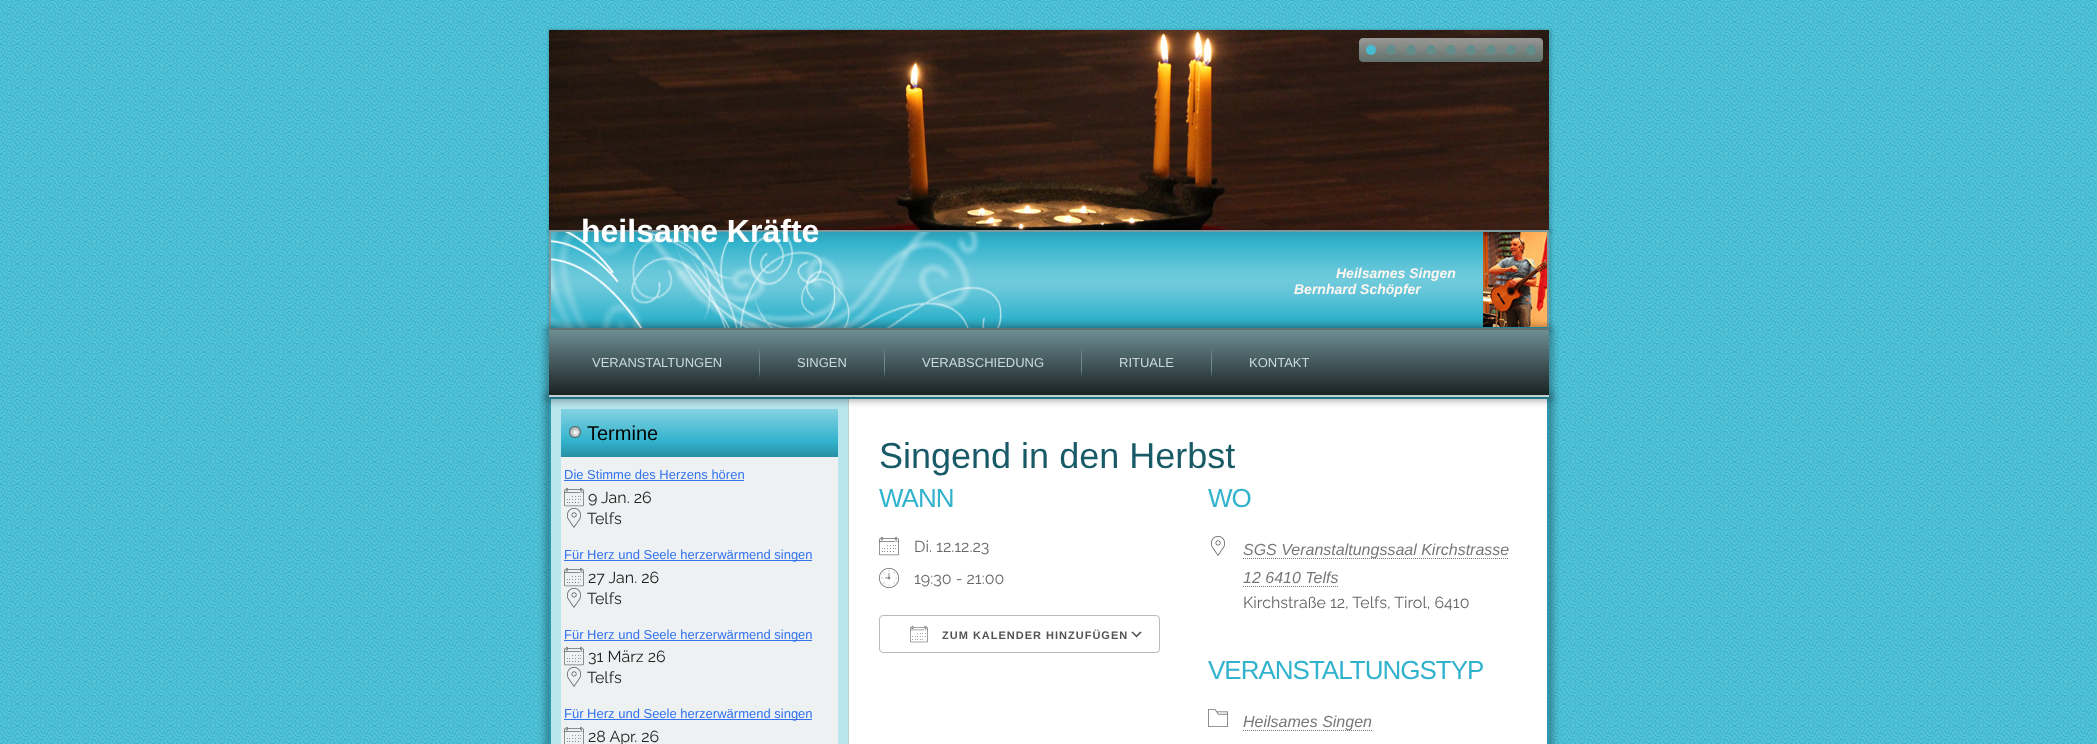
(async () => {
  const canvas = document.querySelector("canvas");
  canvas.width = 2097;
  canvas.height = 744;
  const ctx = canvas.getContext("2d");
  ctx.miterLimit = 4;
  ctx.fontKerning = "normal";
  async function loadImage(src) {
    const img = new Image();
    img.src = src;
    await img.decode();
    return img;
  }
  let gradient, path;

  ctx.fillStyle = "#46bbd2";
  ctx.fillRect(0, 0, 2097, 744);
  ctx.drawImage(await loadImage("img/1.png"), 0, 0, 2097, 744);
  ctx.fillStyle = "rgba(0, 0, 0, 0.15)";
  ctx.filter = "blur(1.5px)";
  ctx.beginPath();
  ctx.rect(548, 29, 1004, 204);
  ctx.fill();
  ctx.filter = "none";
  ctx.drawImage(await loadImage("img/2.png"), 549, 30, 1000, 200);
  ctx.fillStyle = "#46bbd2";
  ctx.beginPath();
  ctx.arc(1371, 50, 5, 0, Math.PI * 2);
  ctx.fill();
  ctx.fillStyle = "#628d8b";
  ctx.beginPath();
  ctx.arc(1391, 50, 5, 0, Math.PI * 2);
  ctx.fill();
  ctx.beginPath();
  ctx.arc(1411, 50, 5, 0, Math.PI * 2);
  ctx.fill();
  ctx.beginPath();
  ctx.arc(1431, 50, 5, 0, Math.PI * 2);
  ctx.fill();
  ctx.beginPath();
  ctx.arc(1451, 50, 5, 0, Math.PI * 2);
  ctx.fill();
  ctx.beginPath();
  ctx.arc(1471, 50, 5, 0, Math.PI * 2);
  ctx.fill();
  ctx.beginPath();
  ctx.arc(1491, 50, 5, 0, Math.PI * 2);
  ctx.fill();
  ctx.beginPath();
  ctx.arc(1511, 50, 5, 0, Math.PI * 2);
  ctx.fill();
  ctx.beginPath();
  ctx.arc(1531, 50, 5, 0, Math.PI * 2);
  ctx.fill();
  ctx.fillStyle = "rgba(0, 0, 0, 0.15)";
  ctx.filter = "blur(1.5px)";
  ctx.beginPath();
  ctx.rect(548, 229, 1004, 104);
  ctx.fill();
  ctx.filter = "none";
  ctx.drawImage(await loadImage("img/3.png"), 551, 232, 996, 96);
  ctx.strokeStyle = "#7b999d";
  ctx.lineWidth = 2;
  ctx.strokeRect(550, 231, 998, 98);
  ctx.fillStyle = "rgba(0, 0, 0, 0.3)";
  ctx.filter = "blur(3.5px)";
  ctx.beginPath();
  ctx.rect(545, 393, 1008, 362);
  ctx.fill();
  ctx.filter = "none";
  for (const [x, y, w, h, color] of [
    [849, 399, 698, 345, "#ffffff"],
    [549, 397, 1000, 2, "#2b9ab1"],
    [1547, 397, 2, 347, "#2b9ab1"],
    [549, 397, 2, 347, "#2b9ab1"],
    [551, 399, 297, 345, "#b9e5ee"],
    [848, 399, 1, 345, "#c1cfd1"],
  ]) {
    ctx.fillStyle = color;
    ctx.fillRect(x, y, w, h);
  }
  gradient = ctx.createLinearGradient(700, 409, 700, 457);
  gradient.addColorStop(0, "#84d2e1");
  gradient.addColorStop(0.67, "#32b3cd");
  gradient.addColorStop(1, "#288fa4");
  ctx.fillStyle = gradient;
  ctx.fillRect(561, 409, 277, 48);
  ctx.fillStyle = "rgba(0, 0, 0, 0.3)";
  ctx.filter = "blur(3.5px)";
  ctx.beginPath();
  ctx.rect(545, 326, 1008, 75);
  ctx.fill();
  ctx.filter = "none";
  gradient = ctx.createLinearGradient(1049, 330, 1049, 397);
  gradient.addColorStop(0, "#6c8e93");
  gradient.addColorStop(1, "#181f20");
  ctx.fillStyle = gradient;
  ctx.fillRect(549, 330, 1000, 65);
  ctx.fillStyle = "#c1cfd1";
  ctx.fillRect(549, 395, 1000, 2);
  ctx.drawImage(await loadImage("img/4.png"), 759, 349, 1, 29);
  ctx.drawImage(await loadImage("img/4.png"), 884, 349, 1, 29);
  ctx.drawImage(await loadImage("img/4.png"), 1081, 349, 1, 29);
  ctx.drawImage(await loadImage("img/4.png"), 1211, 349, 1, 29);
  ctx.fillStyle = "#edf1f2";
  ctx.fillRect(561, 457, 277, 287);
  ctx.drawImage(await loadImage("img/5.png"), 569, 426, 12, 12);
  ctx.fillStyle = "#3372f0";
  ctx.fillRect(564, 480, 180, 1);
  ctx.drawImage(await loadImage("img/6.png"), 564, 487, 20, 20);
  ctx.drawImage(await loadImage("img/7.png"), 567, 508, 14, 20);
  ctx.fillRect(564, 560, 248, 1);
  ctx.drawImage(await loadImage("img/6.png"), 564, 567, 20, 20);
  ctx.drawImage(await loadImage("img/7.png"), 567, 588, 14, 20);
  ctx.fillRect(564, 640, 248, 1);
  ctx.drawImage(await loadImage("img/6.png"), 564, 646, 20, 20);
  ctx.drawImage(await loadImage("img/7.png"), 567, 667, 14, 20);
  ctx.fillRect(564, 719, 248, 1);
  ctx.drawImage(await loadImage("img/8.png"), 564, 726, 20, 18);
  ctx.drawImage(await loadImage("img/9.png"), 879, 536, 20, 20);
  ctx.drawImage(await loadImage("img/10.png"), 879, 568, 20, 20);
  ctx.drawImage(await loadImage("img/11.png"), 1131, 631, 11, 7);
  ctx.beginPath();
  ctx.roundRect(879.5, 615.5, 280, 37, 3.5);
  ctx.strokeStyle = "#bababa";
  ctx.lineWidth = 1;
  ctx.stroke();
  ctx.drawImage(await loadImage("img/12.png"), 910, 625, 18, 18);
  ctx.drawImage(await loadImage("img/13.png"), 1211, 536, 14, 20);
  path = new Path2D("M1243 558.5H1509");
  ctx.strokeStyle = "#787878";
  ctx.setLineDash([1, 1]);
  ctx.stroke(path);
  path = new Path2D("M1243 586.5H1338.5");
  ctx.stroke(path);
  ctx.drawImage(await loadImage("img/14.png"), 1208, 709, 20, 18);
  path = new Path2D("M1243 730.5H1372");
  ctx.stroke(path);
  ctx.font = "bold 32px Liberation Sans";
  ctx.fillStyle = "#ffffff";
  ctx.fillText("heilsame Kräfte", 581, 242);
  ctx.font = "italic bold 14px Liberation Sans";
  ctx.fillStyle = "#fff6f0";
  ctx.fillText("Heilsames Singen", 1336, 278);
  ctx.fillText("Bernhard Schöpfer", 1294, 294);
  ctx.font = "13px Liberation Sans";
  ctx.fillStyle = "#c9d9d9";
  for (const [text, x, y] of [
    ["VERANSTALTUNGEN", 592, 367],
    ["SINGEN", 797, 367],
    ["VERABSCHIEDUNG", 922, 367],
    ["RITUALE", 1119, 367],
    ["KONTAKT", 1249, 367],
  ]) {
    ctx.fillText(text, x, y);
  }
  ctx.font = "20px Liberation Sans";
  ctx.fillStyle = "#000000";
  ctx.fillText("Termine", 587, 440);
  ctx.font = "13px Liberation Sans";
  ctx.fillStyle = "#3372f0";
  ctx.fillText("Die Stimme des Herzens hören", 564, 479);
  ctx.font = "16px Raleway";
  ctx.fillStyle = "#212121";
  ctx.fillText("9 Jan. 26", 588, 503);
  ctx.fillText("Telfs", 587, 524);
  ctx.font = "13px Liberation Sans";
  ctx.fillStyle = "#3372f0";
  ctx.fillText("Für Herz und Seele herzerwärmend singen", 564, 559);
  ctx.font = "16px Raleway";
  ctx.fillStyle = "#212121";
  ctx.fillText("27 Jan. 26", 588, 583);
  ctx.fillText("Telfs", 587, 604);
  ctx.font = "13px Liberation Sans";
  ctx.fillStyle = "#3372f0";
  ctx.fillText("Für Herz und Seele herzerwärmend singen", 564, 639);
  ctx.font = "16px Raleway";
  ctx.fillStyle = "#212121";
  ctx.fillText("31 März 26", 588, 662);
  ctx.fillText("Telfs", 587, 683);
  ctx.font = "13px Liberation Sans";
  ctx.fillStyle = "#3372f0";
  ctx.fillText("Für Herz und Seele herzerwärmend singen", 564, 718);
  ctx.font = "16px Raleway";
  ctx.fillStyle = "#212121";
  ctx.fillText("28 Apr. 26", 588, 742);
  ctx.font = "36px Liberation Sans";
  ctx.fillStyle = "#195a67";
  ctx.fillText("Singend in den Herbst", 879, 468);
  ctx.letterSpacing = "-1px";
  ctx.font = "26px Liberation Sans";
  ctx.fillStyle = "#32b3cd";
  ctx.fillText("WANN", 879, 507);
  ctx.letterSpacing = "0px";
  ctx.font = "16px Raleway";
  ctx.fillStyle = "#666666";
  ctx.fillText("Di. 12.12.23", 914, 552);
  ctx.fillText("19:30 - 21:00", 914, 584);
  ctx.letterSpacing = "1px";
  ctx.font = "bold 11px Liberation Sans";
  ctx.fillStyle = "#545454";
  ctx.fillText("ZUM KALENDER HINZUFÜGEN", 942, 639);
  ctx.letterSpacing = "-1px";
  ctx.font = "26px Liberation Sans";
  ctx.fillStyle = "#32b3cd";
  ctx.fillText("WO", 1208, 507);
  ctx.letterSpacing = "0px";
  ctx.font = "italic 16px Liberation Sans";
  ctx.fillStyle = "#787878";
  ctx.fillText("SGS Veranstaltungssaal Kirchstrasse", 1243, 555);
  ctx.fillText("12 6410 Telfs", 1243, 583);
  ctx.font = "16px Raleway";
  ctx.fillStyle = "#666666";
  ctx.fillText("Kirchstraße 12, Telfs, Tirol, 6410", 1243, 608);
  ctx.letterSpacing = "-1px";
  ctx.font = "26px Liberation Sans";
  ctx.fillStyle = "#32b3cd";
  ctx.fillText("VERANSTALTUNGSTYP", 1208, 679);
  ctx.letterSpacing = "0px";
  ctx.font = "italic 16px Liberation Sans";
  ctx.fillStyle = "#787878";
  ctx.fillText("Heilsames Singen", 1243, 727);
})();
